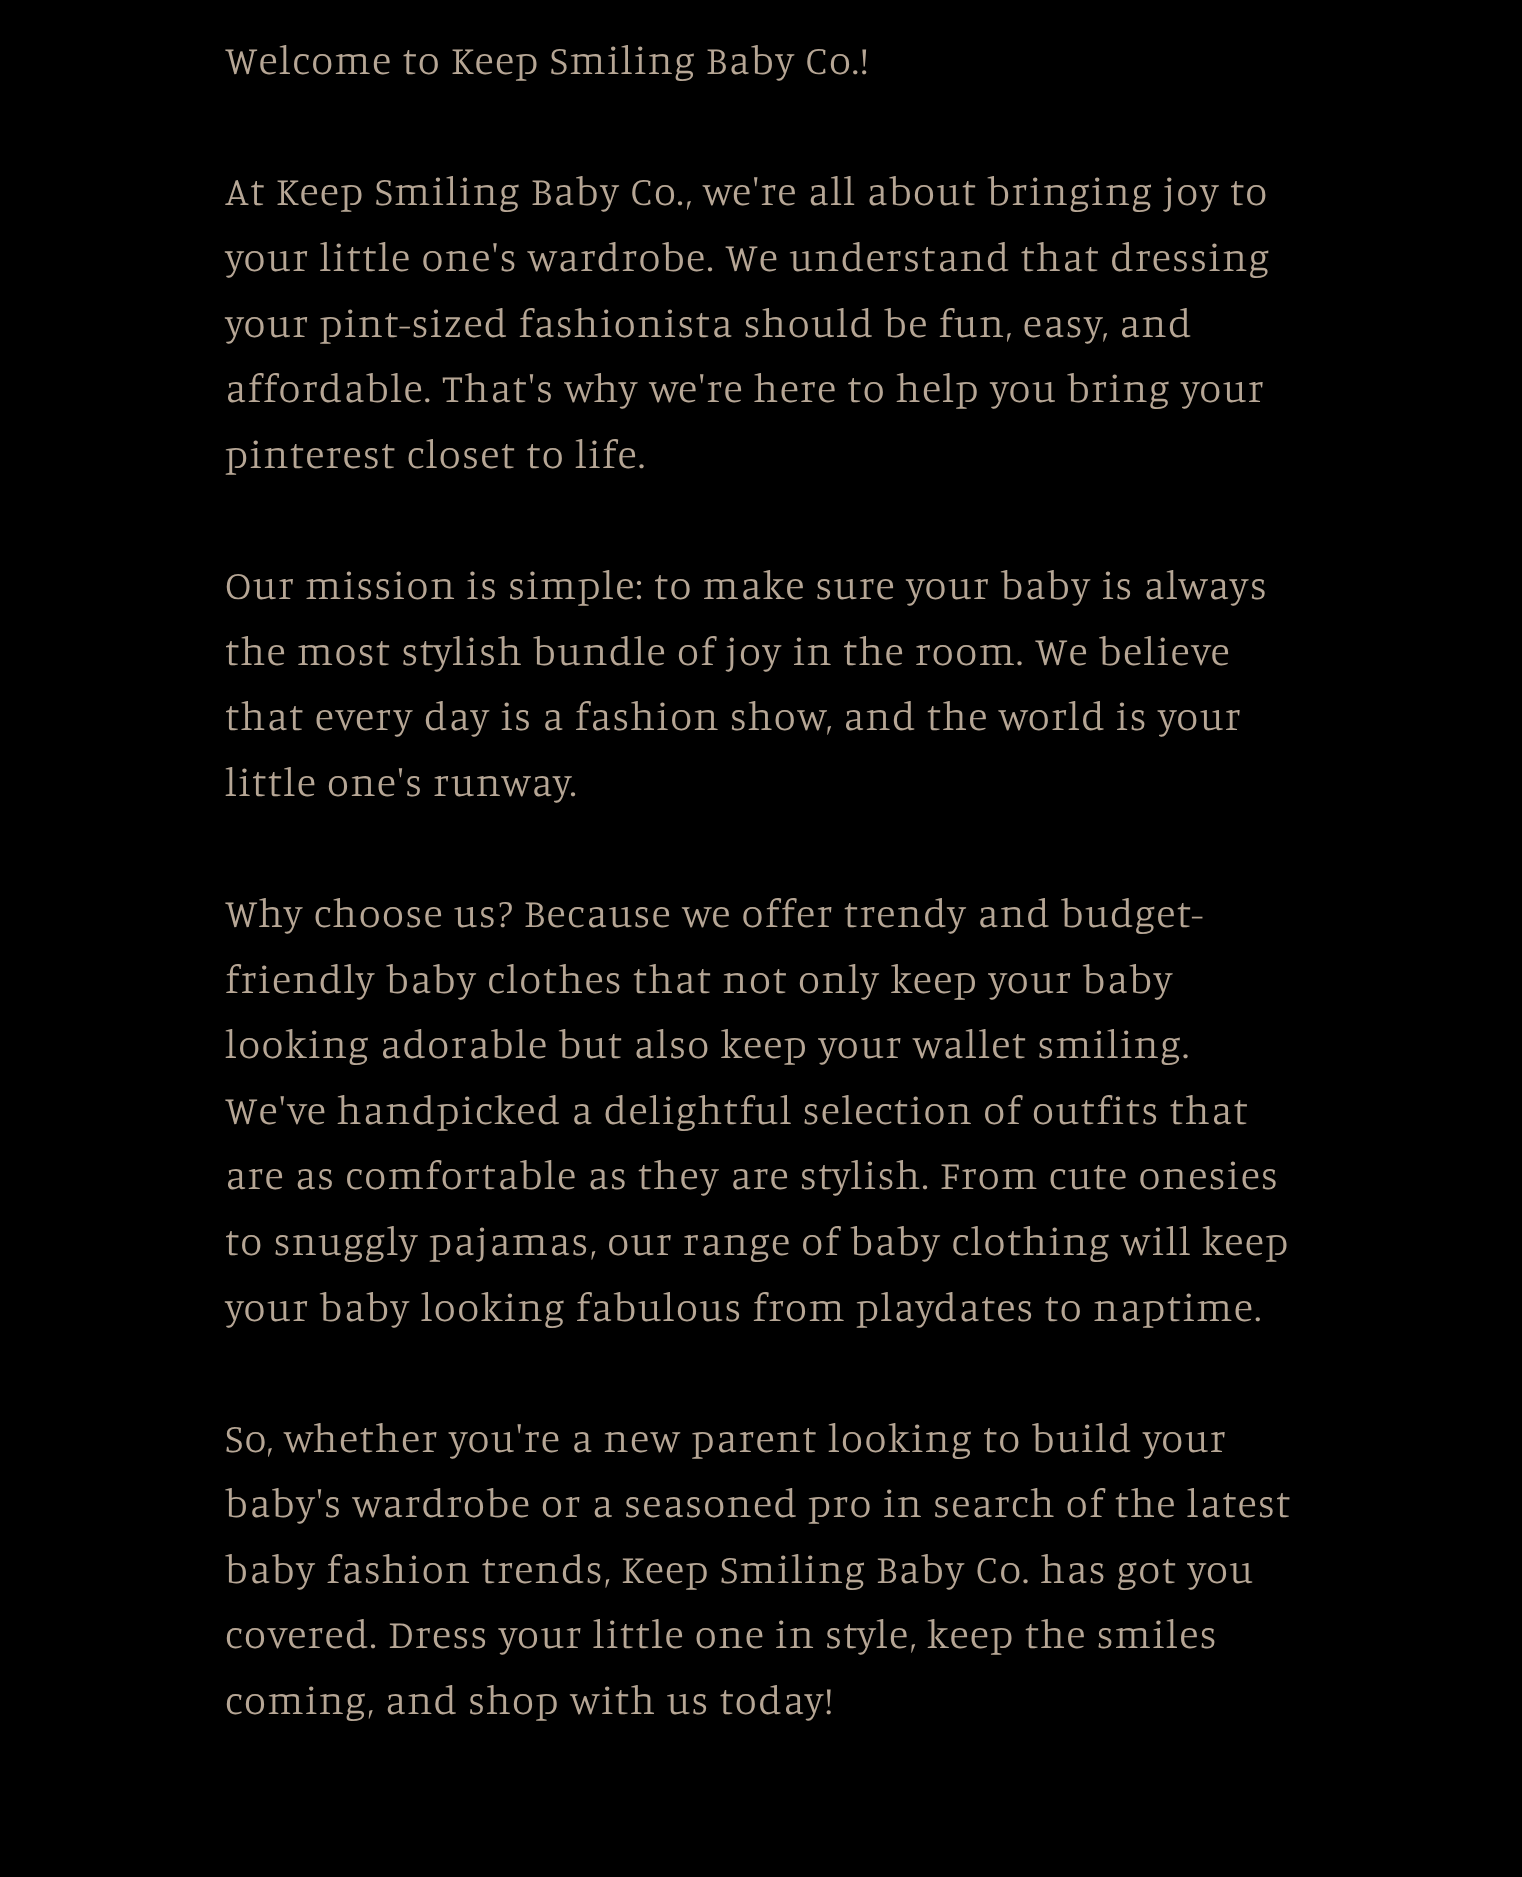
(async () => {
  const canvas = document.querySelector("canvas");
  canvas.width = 1522;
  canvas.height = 1877;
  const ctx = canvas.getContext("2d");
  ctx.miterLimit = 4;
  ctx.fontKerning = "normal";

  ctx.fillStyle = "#000000";
  ctx.fillRect(0, 0, 1522, 1877);
  ctx.letterSpacing = "1.5px";
  ctx.font = "300 40px Manuale";
  ctx.fillStyle = "#b6a695";
  for (const [text, x, y] of [
    ["Welcome to Keep Smiling Baby Co.!", 225, 74],
    ["At Keep Smiling Baby Co., we're all about bringing joy to", 225, 205],
    ["your little one's wardrobe. We understand that dressing", 225, 271],
    ["your pint-sized fashionista should be fun, easy, and", 225, 337],
    ["affordable. That's why we're here to help you bring your", 225, 402],
    ["pinterest closet to life.", 225, 468],
    ["Our mission is simple: to make sure your baby is always", 225, 599],
    ["the most stylish bundle of joy in the room. We believe", 225, 665],
    ["that every day is a fashion show, and the world is your", 225, 730],
    ["little one's runway.", 225, 796],
    ["Why choose us? Because we offer trendy and budget-", 225, 927],
    ["friendly baby clothes that not only keep your baby", 225, 993],
    ["looking adorable but also keep your wallet smiling.", 225, 1058],
    ["We've handpicked a delightful selection of outfits that", 225, 1124],
    ["are as comfortable as they are stylish. From cute onesies", 225, 1189],
    ["to snuggly pajamas, our range of baby clothing will keep", 225, 1255],
    ["your baby looking fabulous from playdates to naptime.", 225, 1321],
    ["So, whether you're a new parent looking to build your", 225, 1452],
    ["baby's wardrobe or a seasoned pro in search of the latest", 225, 1517],
    ["baby fashion trends, Keep Smiling Baby Co. has got you", 225, 1583],
    ["covered. Dress your little one in style, keep the smiles", 225, 1648],
    ["coming, and shop with us today!", 225, 1714],
  ]) {
    ctx.fillText(text, x, y);
  }
})();
